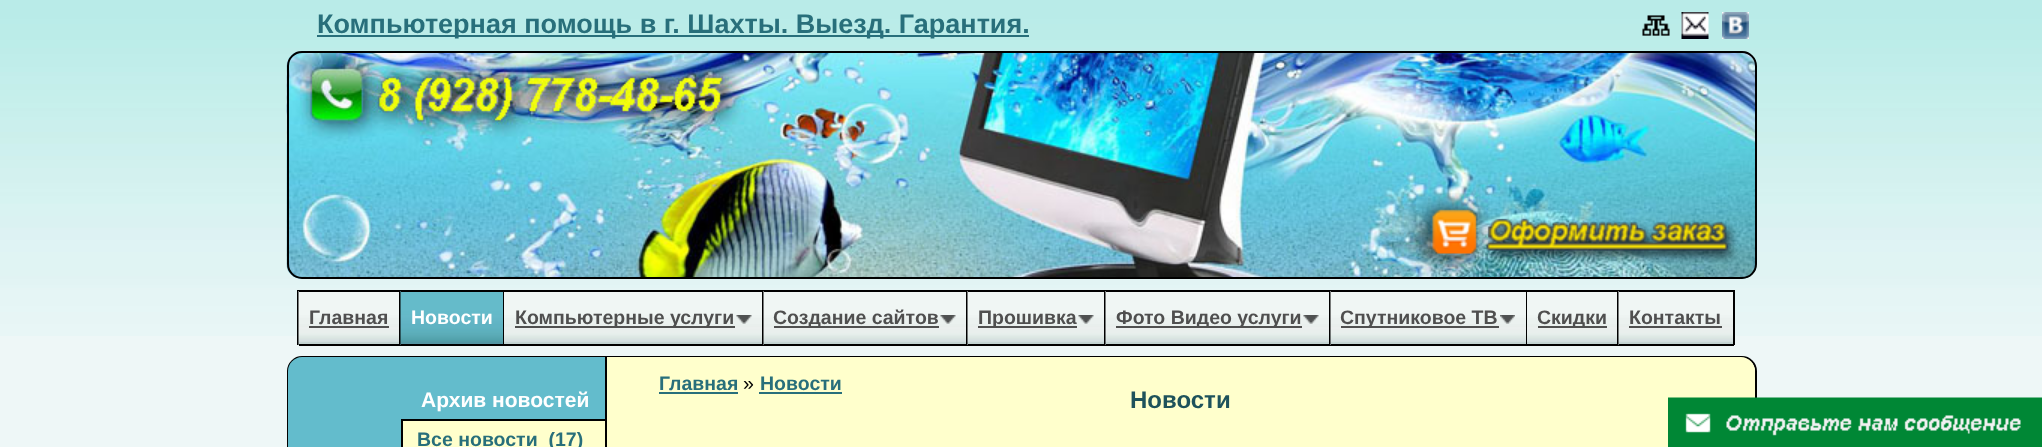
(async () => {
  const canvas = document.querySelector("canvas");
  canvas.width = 2042;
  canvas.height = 447;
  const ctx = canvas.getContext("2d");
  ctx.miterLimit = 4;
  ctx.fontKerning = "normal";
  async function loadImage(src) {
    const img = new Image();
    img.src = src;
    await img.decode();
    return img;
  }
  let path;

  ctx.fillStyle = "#eef7f7";
  ctx.fillRect(0, 0, 2042, 447);
  ctx.drawImage(await loadImage("img/1.png"), 0, 0, 2042, 336);
  ctx.fillStyle = "#286f7b";
  ctx.fillRect(317, 35, 712, 2);
  ctx.drawImage(await loadImage("img/2.png"), 1642, 15, 28, 21);
  ctx.drawImage(await loadImage("img/3.png"), 1681, 12, 28, 27);
  ctx.drawImage(await loadImage("img/4.png"), 1722, 12, 27, 27);
  ctx.drawImage(await loadImage("img/5.png"), 286, 51, 1471, 228);
  ctx.beginPath();
  ctx.roundRect(288, 52, 1468, 226, 14);
  ctx.strokeStyle = "#000000";
  ctx.lineWidth = 2;
  ctx.stroke();
  ctx.drawImage(await loadImage("img/6.png"), 1408, 193, 330, 83);
  ctx.fillStyle = "#000000";
  ctx.fillRect(297, 290, 2, 55);
  ctx.drawImage(await loadImage("img/7.png"), 298, 291, 101, 54);
  for (const [x, y, w, h, color] of [
    [299, 290, 102, 2, "#000000"],
    [399, 290, 2, 55, "#000000"],
    [299, 344, 102, 2, "#000000"],
    [309, 326, 80, 2, "#4f4f4f"],
  ]) {
    ctx.fillStyle = color;
    ctx.fillRect(x, y, w, h);
  }
  ctx.drawImage(await loadImage("img/8.png"), 400, 291, 103, 54);
  for (const [x, y, w, h, color] of [
    [401, 290, 363, 2, "#000000"],
    [503, 290, 1, 55, "#000000"],
    [401, 344, 103, 2, "#000000"],
  ]) {
    ctx.fillStyle = color;
    ctx.fillRect(x, y, w, h);
  }
  ctx.drawImage(await loadImage("img/9.png"), 504, 292, 258, 52);
  for (const [x, y, w, h, color] of [
    [762, 290, 2, 55, "#000000"],
    [504, 344, 260, 2, "#000000"],
    [515, 326, 220, 2, "#4f4f4f"],
  ]) {
    ctx.fillStyle = color;
    ctx.fillRect(x, y, w, h);
  }
  ctx.drawImage(await loadImage("img/10.png"), 736, 315, 16, 9);
  ctx.drawImage(await loadImage("img/11.png"), 763, 291, 203, 54);
  for (const [x, y, w, h, color] of [
    [764, 290, 204, 2, "#000000"],
    [966, 290, 2, 55, "#000000"],
    [764, 344, 204, 2, "#000000"],
    [774, 326, 165, 2, "#4f4f4f"],
  ]) {
    ctx.fillStyle = color;
    ctx.fillRect(x, y, w, h);
  }
  ctx.drawImage(await loadImage("img/12.png"), 940, 315, 16, 9);
  ctx.drawImage(await loadImage("img/13.png"), 967, 291, 137, 54);
  for (const [x, y, w, h, color] of [
    [968, 290, 138, 2, "#000000"],
    [1104, 290, 2, 55, "#000000"],
    [968, 344, 138, 2, "#000000"],
    [978, 326, 99, 2, "#4f4f4f"],
  ]) {
    ctx.fillStyle = color;
    ctx.fillRect(x, y, w, h);
  }
  ctx.drawImage(await loadImage("img/12.png"), 1078, 315, 16, 9);
  ctx.drawImage(await loadImage("img/14.png"), 1105, 291, 224, 54);
  for (const [x, y, w, h, color] of [
    [1106, 290, 225, 2, "#000000"],
    [1329, 290, 2, 55, "#000000"],
    [1106, 344, 225, 2, "#000000"],
    [1116, 326, 186, 2, "#4f4f4f"],
  ]) {
    ctx.fillStyle = color;
    ctx.fillRect(x, y, w, h);
  }
  ctx.drawImage(await loadImage("img/10.png"), 1303, 315, 16, 9);
  ctx.drawImage(await loadImage("img/15.png"), 1330, 291, 196, 54);
  for (const [x, y, w, h, color] of [
    [1331, 290, 288, 2, "#000000"],
    [1526, 290, 1, 55, "#000000"],
    [1331, 344, 196, 2, "#000000"],
    [1341, 326, 158, 2, "#4f4f4f"],
  ]) {
    ctx.fillStyle = color;
    ctx.fillRect(x, y, w, h);
  }
  ctx.drawImage(await loadImage("img/16.png"), 1500, 315, 15, 9);
  ctx.drawImage(await loadImage("img/17.png"), 1527, 292, 90, 52);
  for (const [x, y, w, h, color] of [
    [1617, 290, 2, 55, "#000000"],
    [1527, 344, 92, 2, "#000000"],
    [1538, 326, 69, 2, "#4f4f4f"],
  ]) {
    ctx.fillStyle = color;
    ctx.fillRect(x, y, w, h);
  }
  ctx.drawImage(await loadImage("img/18.png"), 1618, 291, 115, 54);
  for (const [x, y, w, h, color] of [
    [1619, 290, 115, 2, "#000000"],
    [1733, 290, 2, 55, "#000000"],
    [1619, 344, 115, 2, "#000000"],
    [1629, 326, 93, 2, "#4f4f4f"],
  ]) {
    ctx.fillStyle = color;
    ctx.fillRect(x, y, w, h);
  }
  path = new Path2D("M302 357H1742C1749.5 357 1756 363.5 1756 371V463H288V371C288 363.5 294.5 357 302 357Z");
  ctx.stroke(path);
  ctx.fillStyle = "#63bccc";
  path = new Path2D("M302 357H605V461H288V371C288 363.5 294.5 357 302 357Z");
  ctx.fill(path);
  for (const [x, y, w, h, color] of [
    [403, 421, 202, 26, "#ffffcc"],
    [401, 419, 204, 2, "#000000"],
    [401, 419, 2, 28, "#000000"],
  ]) {
    ctx.fillStyle = color;
    ctx.fillRect(x, y, w, h);
  }
  ctx.fillStyle = "#ffffcc";
  path = new Path2D("M605 357H1741C1748.5 357 1755 363.5 1755 371V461H605Z");
  ctx.fill(path);
  for (const [x, y, w, h, color] of [
    [605, 357, 2, 90, "#000000"],
    [659, 392, 79, 2, "#286f7b"],
    [759, 392, 83, 2, "#286f7b"],
  ]) {
    ctx.fillStyle = color;
    ctx.fillRect(x, y, w, h);
  }
  ctx.drawImage(await loadImage("img/19.png"), 1668, 397, 374, 50);
  ctx.font = "bold 27px Liberation Sans";
  ctx.fillText("Компьютерная помощь в г. Шахты. Выезд. Гарантия.", 317, 33);
  ctx.font = "bold 19.5px Liberation Sans";
  ctx.fillStyle = "#4f4f4f";
  ctx.fillText("Главная", 309, 324);
  ctx.fillStyle = "#ffffff";
  ctx.fillText("Новости", 411, 324);
  ctx.fillStyle = "#4f4f4f";
  for (const [text, x, y] of [
    ["Компьютерные услуги", 515, 324],
    ["Создание сайтов", 773, 324],
    ["Прошивка", 978, 324],
    ["Фото Видео услуги", 1116, 324],
    ["Спутниковое ТВ", 1340, 324],
    ["Скидки", 1537, 324],
    ["Контакты", 1629, 324],
  ]) {
    ctx.fillText(text, x, y);
  }
  ctx.font = "bold 21px Liberation Sans";
  ctx.fillStyle = "#ffffff";
  ctx.fillText("Архив новостей", 421, 407);
  ctx.font = "bold 19.5px Liberation Sans";
  ctx.fillStyle = "#286f7b";
  ctx.fillText("Все новости  (17)", 417, 446);
  ctx.fillText("Главная", 659, 390);
  ctx.font = "19.5px Liberation Sans";
  ctx.fillStyle = "#000000";
  ctx.fillText("»", 743, 390);
  ctx.font = "bold 19.5px Liberation Sans";
  ctx.fillStyle = "#286f7b";
  ctx.fillText("Новости", 760, 390);
  ctx.font = "bold 24px Liberation Sans";
  ctx.fillStyle = "#1e525b";
  ctx.fillText("Новости", 1130, 408);
})();
